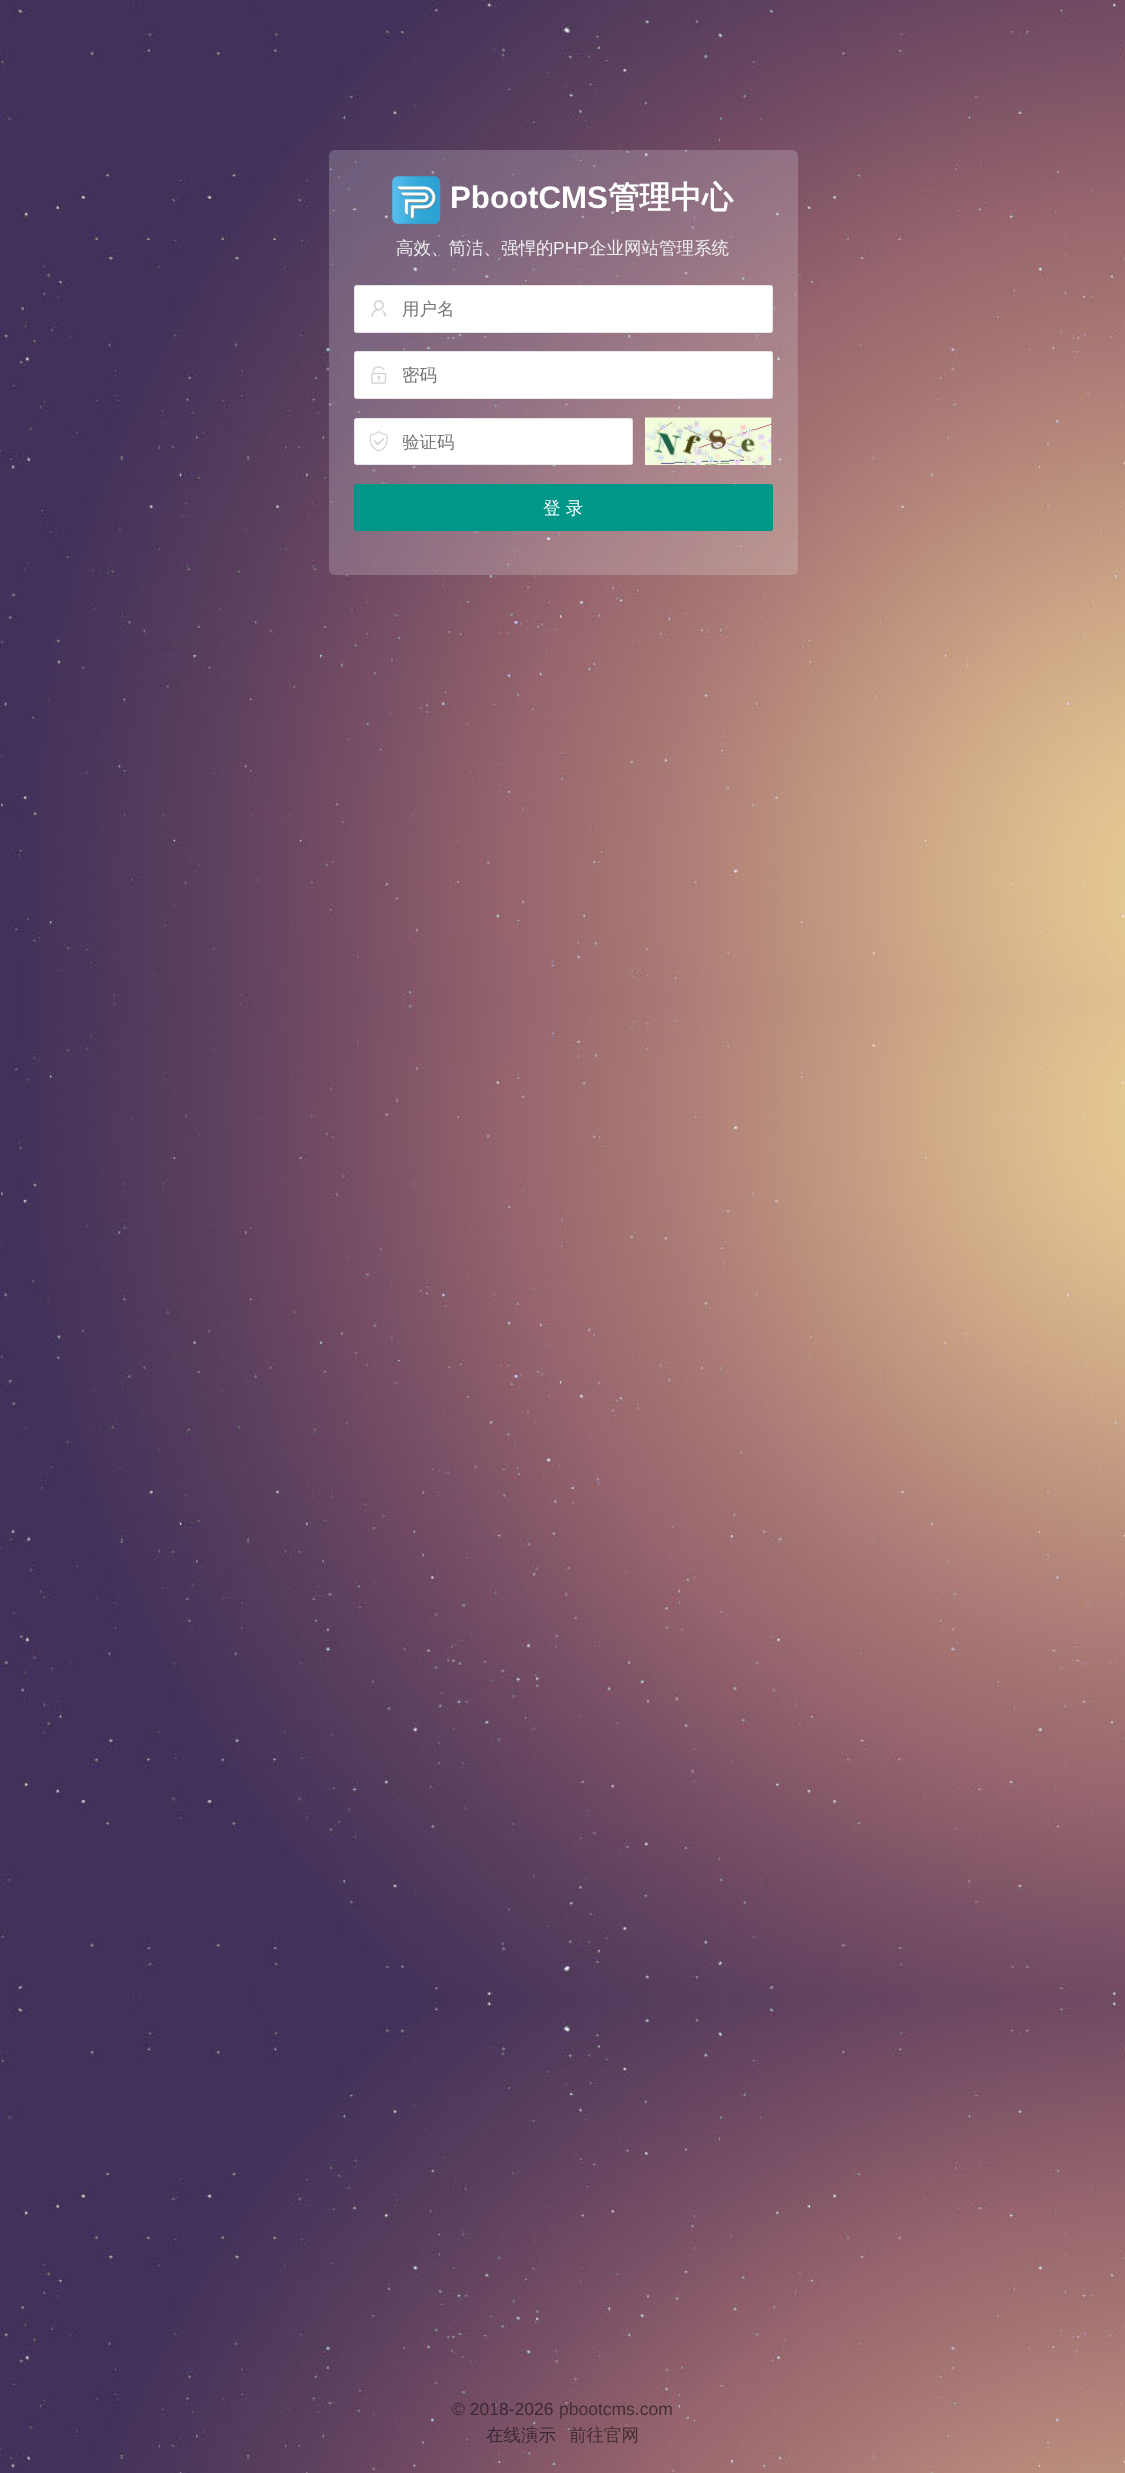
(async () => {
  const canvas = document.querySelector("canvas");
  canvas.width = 1125;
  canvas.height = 2473;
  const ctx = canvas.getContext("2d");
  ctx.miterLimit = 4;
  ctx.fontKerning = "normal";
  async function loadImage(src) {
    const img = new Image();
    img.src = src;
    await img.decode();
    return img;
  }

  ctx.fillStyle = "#ffffff";
  ctx.fillRect(0, 0, 1125, 2473);
  ctx.drawImage(await loadImage("img/1.png"), 0, 0, 1125, 2473);
  ctx.fillStyle = "rgba(248, 248, 255, 0.2)";
  ctx.beginPath();
  ctx.roundRect(329, 150, 469, 425, 6);
  ctx.fill();
  ctx.drawImage(await loadImage("img/2.png"), 392, 175, 49, 50);
  ctx.fillStyle = "#ffffff";
  ctx.beginPath();
  ctx.roundRect(354.5, 285.5, 418, 47, 2);
  ctx.fill();
  ctx.strokeStyle = "#e6e6e6";
  ctx.stroke();
  ctx.drawImage(await loadImage("img/3.png"), 371, 300, 16, 17);
  ctx.beginPath();
  ctx.roundRect(354.5, 351.5, 418, 47, 2);
  ctx.fill();
  ctx.stroke();
  ctx.drawImage(await loadImage("img/4.png"), 371, 366, 16, 18);
  ctx.beginPath();
  ctx.roundRect(354.5, 418.5, 278, 46, 2);
  ctx.fill();
  ctx.stroke();
  ctx.drawImage(await loadImage("img/5.png"), 369, 431, 19, 21);
  ctx.drawImage(await loadImage("img/6.png"), 645, 417, 127, 48);
  ctx.fillStyle = "#009688";
  ctx.beginPath();
  ctx.roundRect(354, 484, 419, 47, 2.5);
  ctx.fill();
  ctx.font = "bold 31.25px Liberation Sans";
  ctx.fillStyle = "#ffffff";
  ctx.fillText("PbootCMS", 450, 208);
  ctx.font = "bold 31.25px WenQuanYi Zen Hei";
  ctx.fillText("管理中心", 608, 208);
  ctx.font = "500 17.5px WenQuanYi Zen Hei";
  ctx.fillStyle = "#eeeeee";
  ctx.fillText("高效、简洁、强悍的", 396, 254);
  ctx.font = "17.5px Liberation Sans";
  ctx.fillText("PHP", 553, 254);
  ctx.font = "500 17.5px WenQuanYi Zen Hei";
  ctx.fillText("企业网站管理系统", 589, 254);
  ctx.fillStyle = "#757575";
  ctx.fillText("用户名", 402, 315);
  ctx.fillText("密码", 402, 381);
  ctx.save();
  ctx.beginPath();
  ctx.rect(403, 431, 228, 23);
  ctx.clip();
  ctx.fillText("验证码", 402, 448);
  ctx.restore();
  ctx.fillStyle = "#ffffff";
  ctx.fillText("登 录", 543, 514);
  ctx.font = "17.5px Liberation Sans";
  ctx.fillStyle = "#3c2833";
  ctx.fillText("© 2018-2026", 452, 2415);
  ctx.fillStyle = "#452e35";
  ctx.fillText("pbootcms.com", 559, 2415);
  ctx.font = "500 17.5px WenQuanYi Zen Hei";
  ctx.fillStyle = "#3c2833";
  ctx.fillText("在线演示", 486, 2441);
  ctx.fillStyle = "#452e35";
  ctx.fillText("前往官网", 569, 2441);
})();
